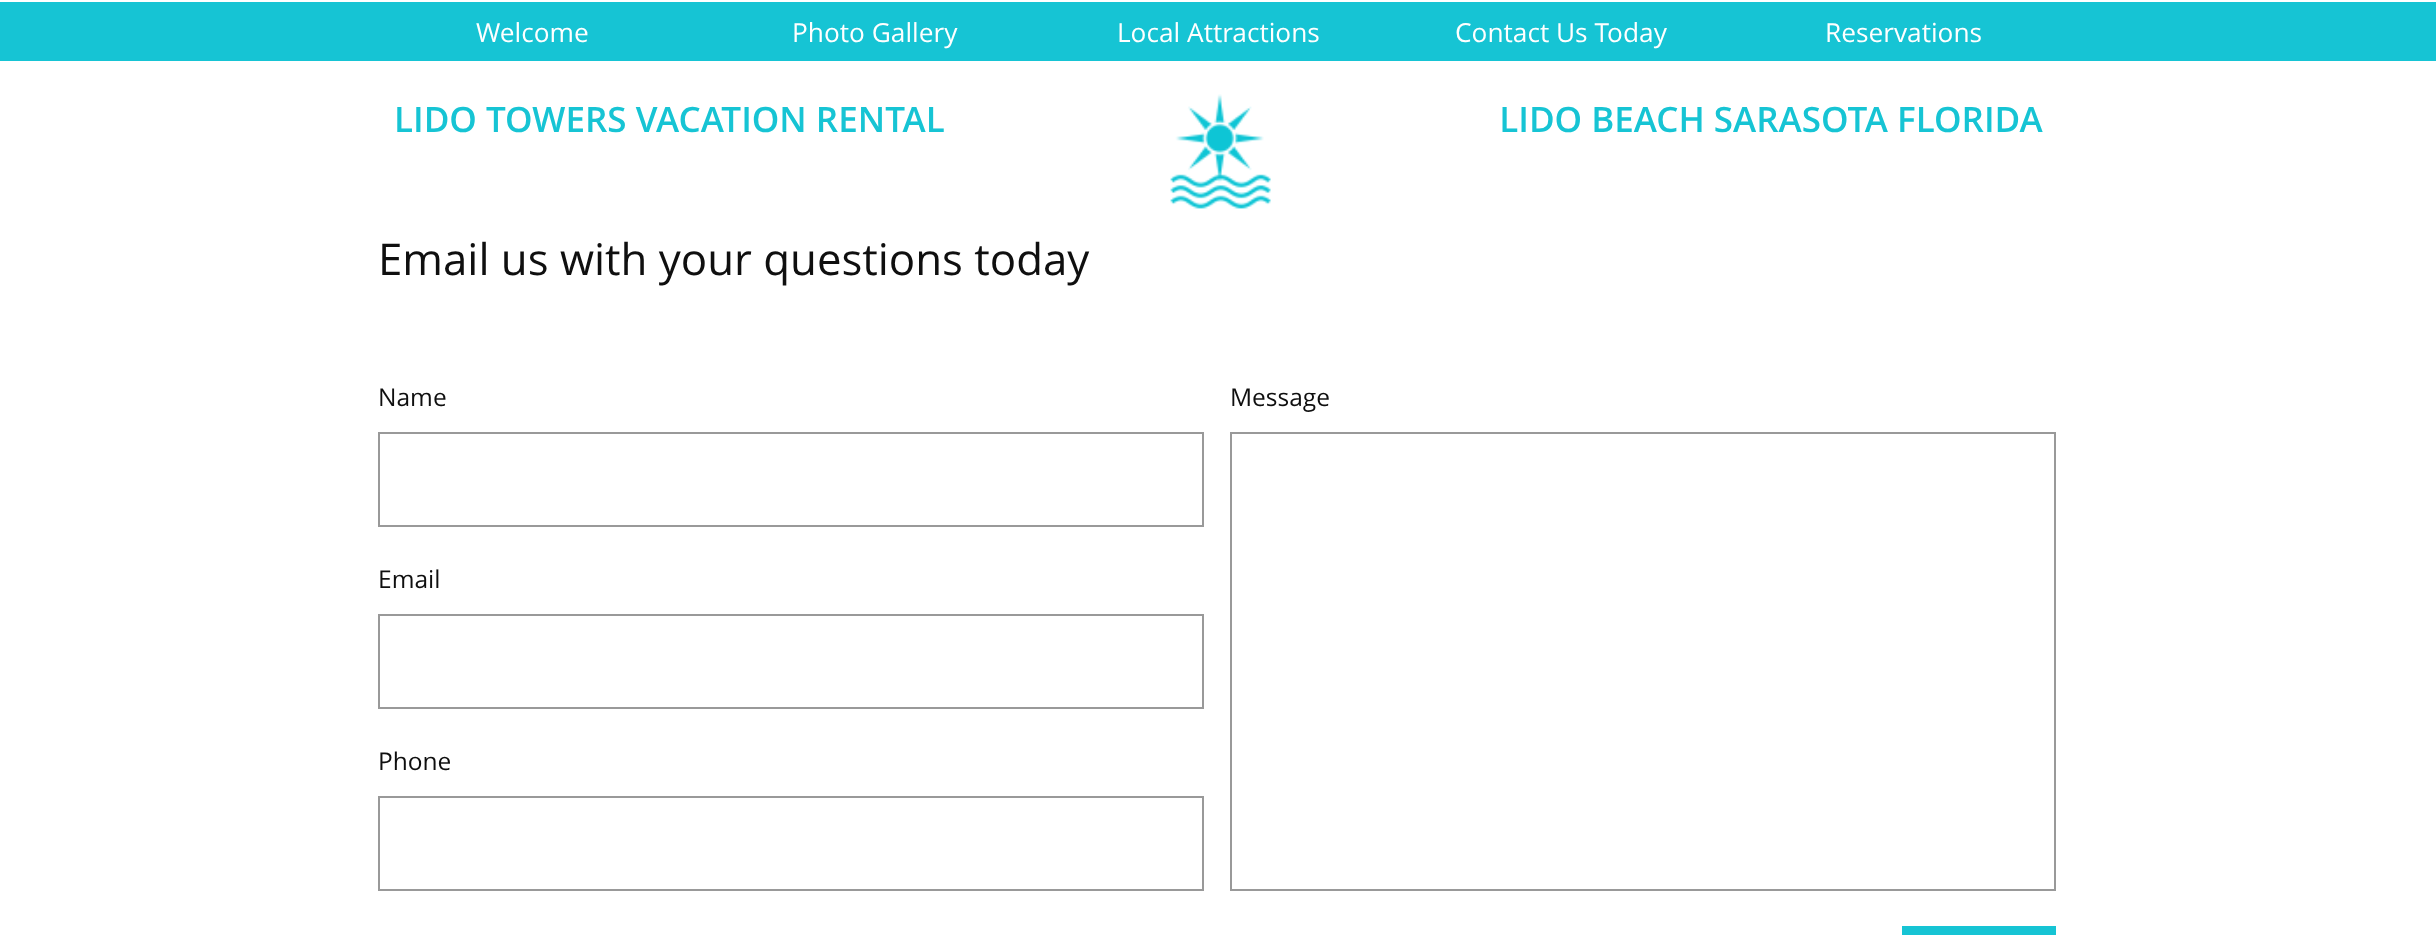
(async () => {
  const canvas = document.querySelector("canvas");
  canvas.width = 2436;
  canvas.height = 935;
  const ctx = canvas.getContext("2d");
  ctx.miterLimit = 4;
  ctx.fontKerning = "normal";
  async function loadImage(src) {
    const img = new Image();
    img.src = src;
    await img.decode();
    return img;
  }

  ctx.fillStyle = "#ffffff";
  ctx.fillRect(0, 0, 2436, 935);
  ctx.fillStyle = "#16c4d4";
  ctx.fillRect(0, 2, 2436, 59);
  ctx.strokeStyle = "#999999";
  ctx.lineWidth = 2;
  ctx.strokeRect(379, 433, 824, 93);
  ctx.strokeRect(379, 615, 824, 93);
  ctx.strokeRect(379, 797, 824, 93);
  ctx.strokeRect(1231, 433, 824, 457);
  ctx.fillRect(1902, 926, 154, 9);
  ctx.font = "26.25px Open Sans";
  ctx.fillStyle = "#ffffff";
  for (const [text, x, y] of [
    ["Welcome", 476, 42],
    ["Photo Gallery", 792, 42],
    ["Local Attractions", 1117, 42],
    ["Contact Us Today", 1455, 42],
    ["Reservations", 1825, 42],
  ]) {
    ctx.fillText(text, x, y);
  }
  ctx.font = "600 35px Open Sans";
  ctx.fillStyle = "#16c4d4";
  ctx.fillText("LIDO TOWERS VACATION RENTAL                                                             LIDO BEACH SARASOTA FLORIDA", 394, 132);
  ctx.drawImage(await loadImage("img/1.png"), 1170, 94, 101, 115);
  ctx.font = "43.75px Open Sans";
  ctx.fillStyle = "#0f0f0f";
  ctx.fillText("Email us with your questions today", 378, 275);
  ctx.font = "24.5px Open Sans";
  for (const [text, x, y] of [
    ["Name", 378, 406],
    ["Email", 378, 588],
    ["Phone", 378, 770],
    ["Message", 1230, 406],
  ]) {
    ctx.fillText(text, x, y);
  }
})();
